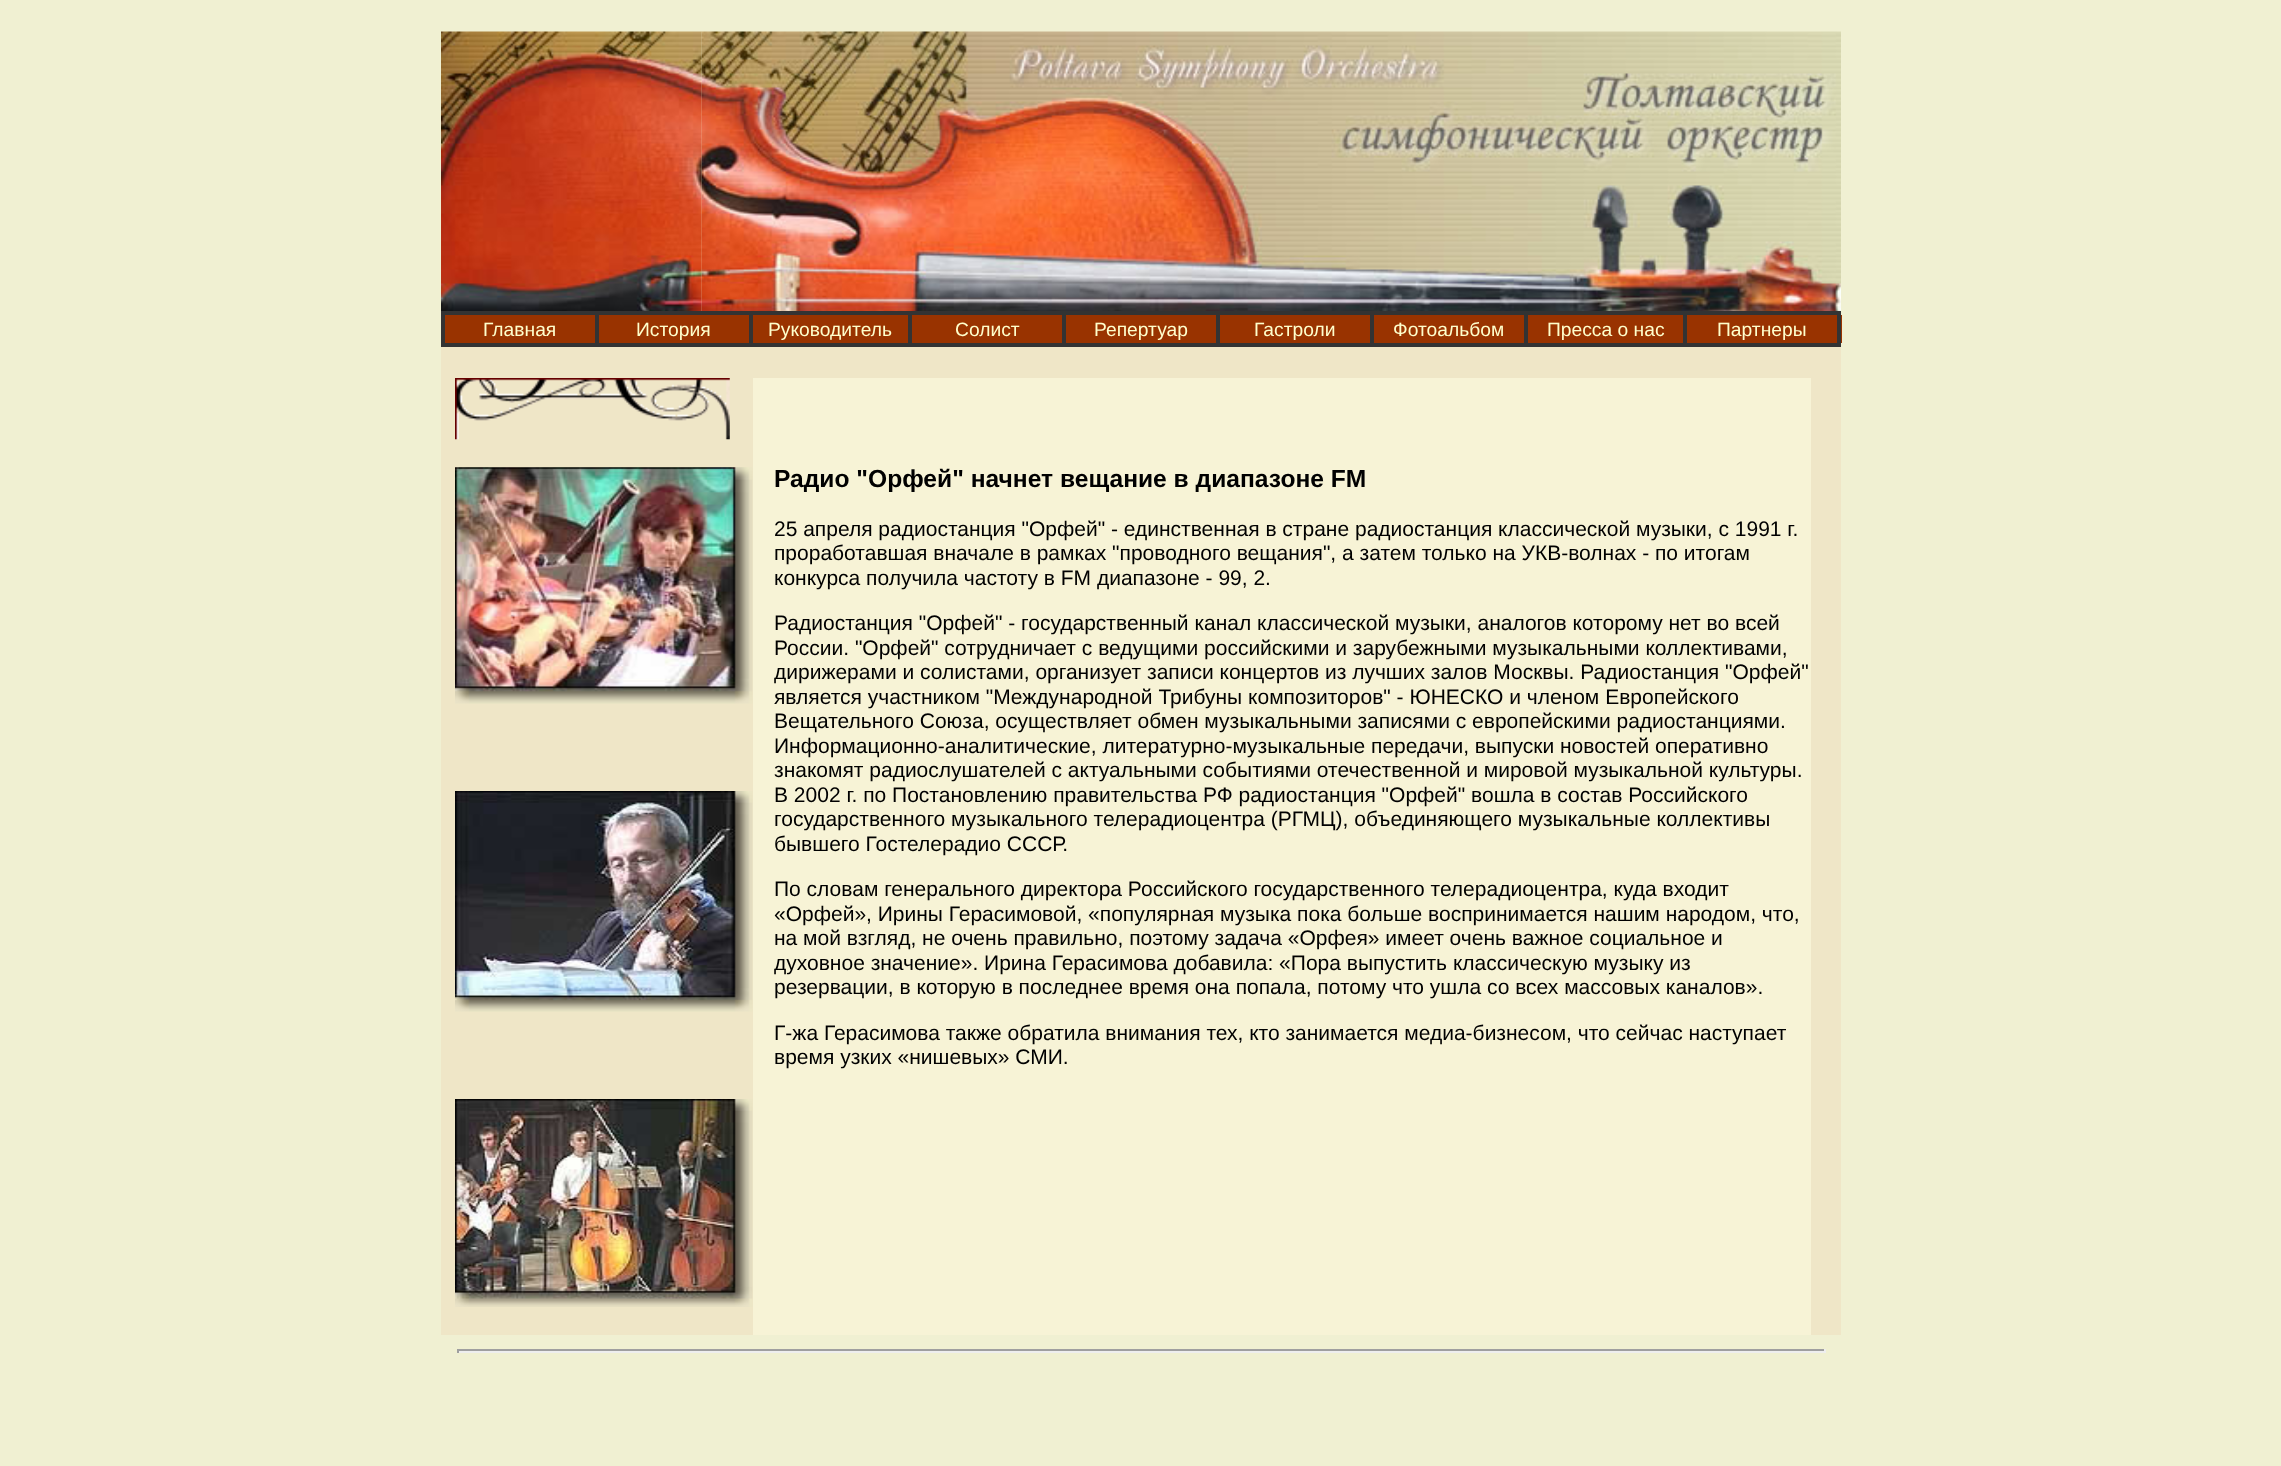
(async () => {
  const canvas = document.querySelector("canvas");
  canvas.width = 2281;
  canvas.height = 1466;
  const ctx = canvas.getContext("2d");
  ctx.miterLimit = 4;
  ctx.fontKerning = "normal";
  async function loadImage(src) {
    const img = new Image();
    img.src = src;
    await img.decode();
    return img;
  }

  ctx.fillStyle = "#f0f0d2";
  ctx.fillRect(0, 0, 2281, 1466);
  ctx.drawImage(await loadImage("img/1.png"), 441, 31, 261, 280);
  ctx.drawImage(await loadImage("img/2.png"), 701, 31, 1140, 280);
  for (const [x, y, w, h, color] of [
    [441, 311, 1400, 4, "#333333"],
    [441, 315, 4, 28, "#333333"],
    [445, 315, 150, 28, "#993300"],
    [595, 315, 4, 28, "#333333"],
    [599, 315, 150, 28, "#993300"],
    [749, 315, 4, 28, "#333333"],
    [753, 315, 155, 28, "#993300"],
    [908, 315, 4, 28, "#333333"],
    [912, 315, 150, 28, "#993300"],
    [1062, 315, 4, 28, "#333333"],
    [1066, 315, 150, 28, "#993300"],
    [1216, 315, 4, 28, "#333333"],
    [1220, 315, 150, 28, "#993300"],
    [1370, 315, 4, 28, "#333333"],
    [1374, 315, 150, 28, "#993300"],
    [1524, 315, 4, 28, "#333333"],
    [1528, 315, 155, 28, "#993300"],
    [1683, 315, 4, 28, "#333333"],
    [1687, 315, 150, 28, "#993300"],
    [1841, 315, 1, 28, "#993300"],
    [1837, 315, 4, 28, "#333333"],
    [441, 343, 1400, 4, "#333333"],
    [441, 347, 1400, 988, "#efe6c7"],
  ]) {
    ctx.fillStyle = color;
    ctx.fillRect(x, y, w, h);
  }
  ctx.drawImage(await loadImage("img/3.png"), 455, 378, 275, 62);
  ctx.fillStyle = "#f7f3d6";
  ctx.fillRect(753, 378, 1058, 61);
  ctx.drawImage(await loadImage("img/4.png"), 455, 467, 298, 237);
  ctx.drawImage(await loadImage("img/5.png"), 455, 791, 298, 221);
  ctx.drawImage(await loadImage("img/6.png"), 455, 1099, 298, 208);
  for (const [x, y, w, h, color] of [
    [753, 439, 1058, 896, "#f7f3d6"],
    [457, 1349, 1368, 2, "#9f9f9f"],
    [1824, 1349, 2, 4, "#eeeeee"],
    [457, 1351, 1368, 2, "#eeeeee"],
    [457, 1349, 2, 4, "#9f9f9f"],
  ]) {
    ctx.fillStyle = color;
    ctx.fillRect(x, y, w, h);
  }
  ctx.font = "19.25px Liberation Sans";
  ctx.fillStyle = "#ffffcc";
  for (const [text, x, y] of [
    ["Главная", 483, 336],
    ["История", 636, 336],
    ["Руководитель", 768, 336],
    ["Солист", 955, 336],
    ["Репертуар", 1094, 336],
    ["Гастроли", 1254, 336],
    ["Фотоальбом", 1393, 336],
    ["Пресса о нас", 1547, 336],
    ["Партнеры", 1717, 336],
  ]) {
    ctx.fillText(text, x, y);
  }
  ctx.font = "bold 24.6px Liberation Sans";
  ctx.fillStyle = "#000000";
  ctx.fillText("Радио \"Орфей\" начнет вещание в диапазоне FM", 774, 487);
  ctx.font = "21px Liberation Sans";
  for (const [text, x, y] of [
    ["25 апреля радиостанция \"Орфей\" - единственная в стране радиостанция классической музыки, с 1991 г.", 774, 536],
    ["проработавшая вначале в рамках \"проводного вещания\", а затем только на УКВ-волнах - по итогам", 774, 560],
    ["конкурса получила частоту в FM диапазоне - 99, 2.", 774, 585],
    ["Радиостанция \"Орфей\" - государственный канал классической музыки, аналогов которому нет во всей", 774, 630],
    ["России. \"Орфей\" сотрудничает с ведущими российскими и зарубежными музыкальными коллективами,", 774, 655],
    ["дирижерами и солистами, организует записи концертов из лучших залов Москвы. Радиостанция \"Орфей\"", 774, 679],
    ["является участником \"Международной Трибуны композиторов\" - ЮНЕСКО и членом Европейского", 774, 704],
    ["Вещательного Союза, осуществляет обмен музыкальными записями с европейскими радиостанциями.", 774, 728],
    ["Информационно-аналитические, литературно-музыкальные передачи, выпуски новостей оперативно", 774, 753],
    ["знакомят радиослушателей с актуальными событиями отечественной и мировой музыкальной культуры.", 774, 777],
    ["В 2002 г. по Постановлению правительства РФ радиостанция \"Орфей\" вошла в состав Российского", 774, 802],
    ["государственного музыкального телерадиоцентра (РГМЦ), объединяющего музыкальные коллективы", 774, 826],
    ["бывшего Гостелерадио СССР.", 774, 851],
    ["По словам генерального директора Российского государственного телерадиоцентра, куда входит", 774, 896],
    ["«Орфей», Ирины Герасимовой, «популярная музыка пока больше воспринимается нашим народом, что,", 774, 921],
    ["на мой взгляд, не очень правильно, поэтому задача «Орфея» имеет очень важное социальное и", 774, 945],
    ["духовное значение». Ирина Герасимова добавила: «Пора выпустить классическую музыку из", 774, 970],
    ["резервации, в которую в последнее время она попала, потому что ушла со всех массовых каналов».", 774, 994],
    ["Г-жа Герасимова также обратила внимания тех, кто занимается медиа-бизнесом, что сейчас наступает", 774, 1040],
    ["время узких «нишевых» СМИ.", 774, 1064],
  ]) {
    ctx.fillText(text, x, y);
  }
})();
